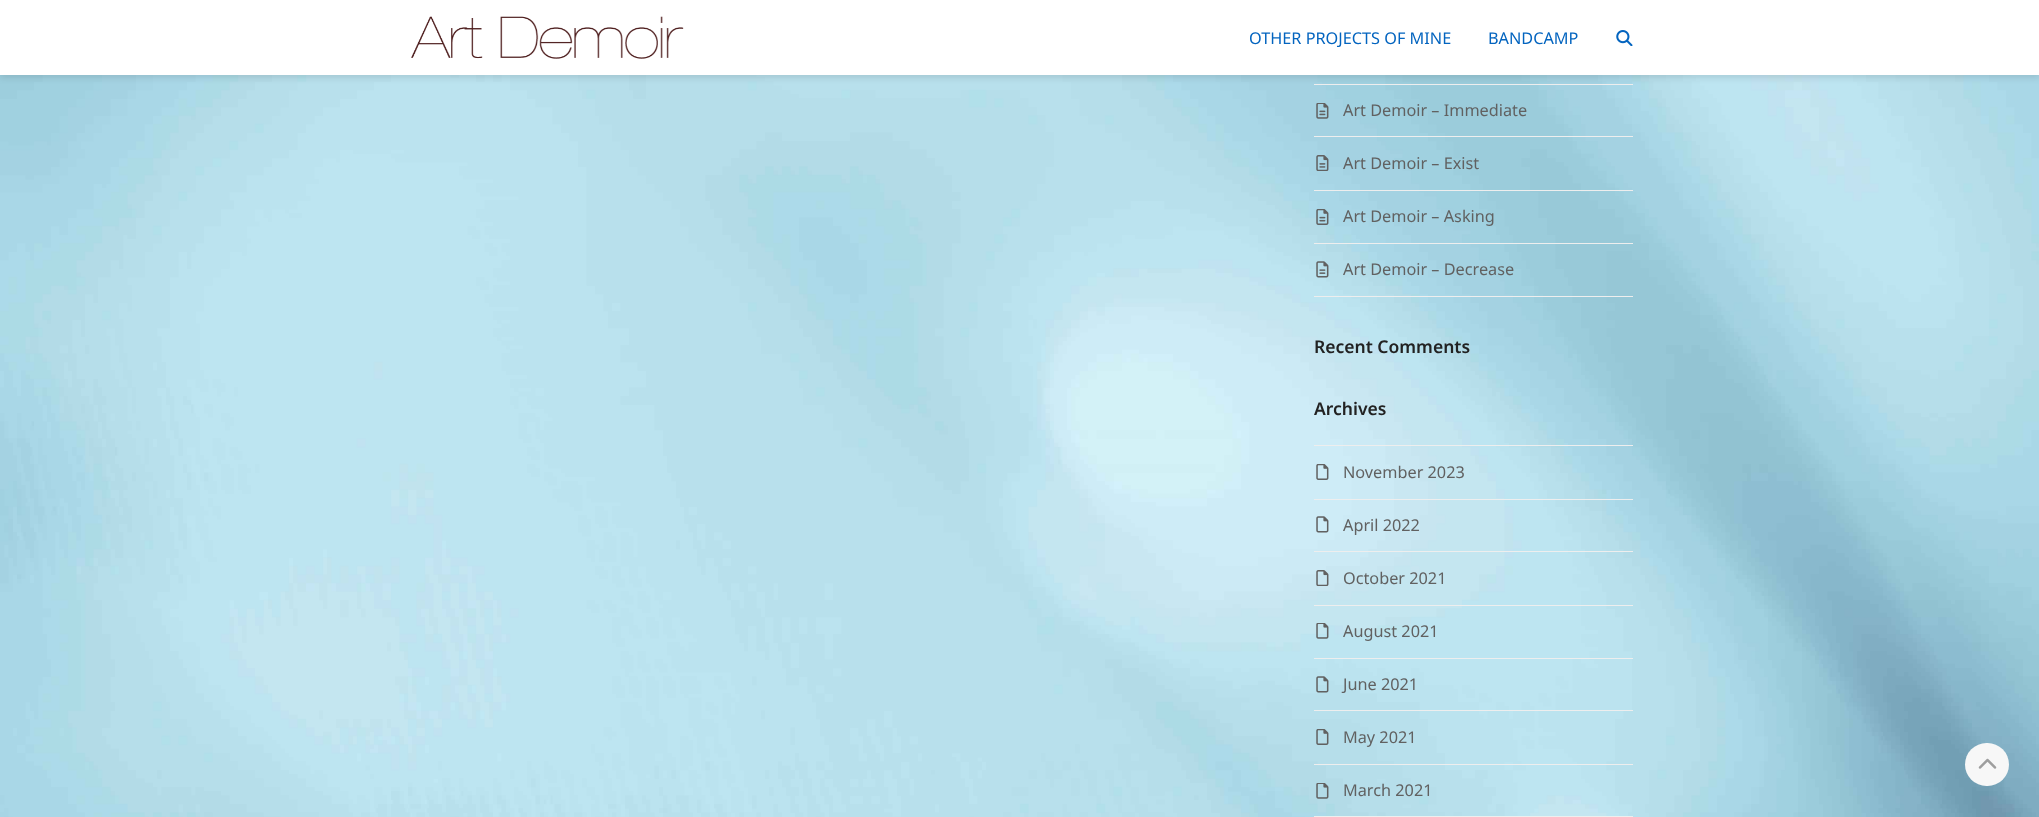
(async () => {
  const canvas = document.querySelector("canvas");
  canvas.width = 2039;
  canvas.height = 817;
  const ctx = canvas.getContext("2d");
  ctx.miterLimit = 4;
  ctx.fontKerning = "normal";
  async function loadImage(src) {
    const img = new Image();
    img.src = src;
    await img.decode();
    return img;
  }

  ctx.fillStyle = "#ffffff";
  ctx.fillRect(0, 0, 2039, 817);
  ctx.drawImage(await loadImage("img/1.png"), 0, 75, 2039, 742);
  ctx.fillStyle = "#eeeeee";
  ctx.fillRect(1314, 84, 319, 1);
  ctx.fillStyle = "rgba(0, 0, 0, 0.1)";
  ctx.filter = "blur(3px)";
  ctx.beginPath();
  ctx.rect(0, 3, 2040, 75);
  ctx.fill();
  ctx.filter = "none";
  ctx.fillStyle = "#ffffff";
  ctx.fillRect(0, 0, 2039, 75);
  ctx.drawImage(await loadImage("img/2.png"), 411, 16, 273, 43);
  ctx.drawImage(await loadImage("img/3.png"), 1616, 30, 17, 16);
  ctx.fillStyle = "#eeeeee";
  ctx.fillRect(1314, 136, 319, 1);
  ctx.drawImage(await loadImage("img/4.png"), 1316, 103, 13, 16);
  ctx.fillRect(1314, 190, 319, 1);
  ctx.drawImage(await loadImage("img/5.png"), 1316, 155, 13, 16);
  ctx.fillRect(1314, 243, 319, 1);
  ctx.drawImage(await loadImage("img/6.png"), 1316, 209, 13, 16);
  ctx.fillRect(1314, 296, 319, 1);
  ctx.drawImage(await loadImage("img/7.png"), 1316, 261, 13, 17);
  ctx.fillRect(1314, 445, 319, 1);
  ctx.fillRect(1314, 499, 319, 1);
  ctx.drawImage(await loadImage("img/8.png"), 1316, 464, 13, 16);
  ctx.fillRect(1314, 551, 319, 1);
  ctx.drawImage(await loadImage("img/9.png"), 1316, 516, 13, 17);
  ctx.fillRect(1314, 605, 319, 1);
  ctx.drawImage(await loadImage("img/10.png"), 1316, 570, 13, 16);
  ctx.fillRect(1314, 658, 319, 1);
  ctx.drawImage(await loadImage("img/11.png"), 1316, 623, 13, 16);
  ctx.fillRect(1314, 710, 319, 1);
  ctx.drawImage(await loadImage("img/12.png"), 1316, 676, 13, 17);
  ctx.fillRect(1314, 764, 319, 1);
  ctx.drawImage(await loadImage("img/13.png"), 1316, 729, 13, 16);
  ctx.fillRect(1314, 816, 319, 1);
  ctx.drawImage(await loadImage("img/14.png"), 1316, 783, 13, 16);
  ctx.fillStyle = "#f7f7f7";
  ctx.beginPath();
  ctx.roundRect(1965, 743, 44, 43, 21.5);
  ctx.fill();
  ctx.drawImage(await loadImage("img/15.png"), 1978, 758, 19, 11);
  ctx.font = "16.25px Noto Sans";
  ctx.fillStyle = "#0364bf";
  ctx.fillText("OTHER PROJECTS OF MINE", 1249, 44);
  ctx.fillText("BANDCAMP", 1488, 44);
  ctx.fillStyle = "#616161";
  for (const [text, x, y] of [
    ["Art Demoir – Immediate", 1343, 116],
    ["Art Demoir – Exist", 1343, 169],
    ["Art Demoir – Asking", 1343, 222],
    ["Art Demoir – Decrease", 1343, 275],
  ]) {
    ctx.fillText(text, x, y);
  }
  ctx.font = "600 17.5px Noto Sans";
  ctx.fillStyle = "#222222";
  ctx.fillText("Recent Comments", 1314, 353);
  ctx.fillText("Archives", 1314, 415);
  ctx.font = "16.25px Noto Sans";
  ctx.fillStyle = "#616161";
  for (const [text, x, y] of [
    ["November 2023", 1343, 478],
    ["April 2022", 1343, 531],
    ["October 2021", 1343, 584],
    ["August 2021", 1343, 637],
    ["June 2021", 1343, 690],
    ["May 2021", 1343, 743],
    ["March 2021", 1343, 796],
  ]) {
    ctx.fillText(text, x, y);
  }
})();
